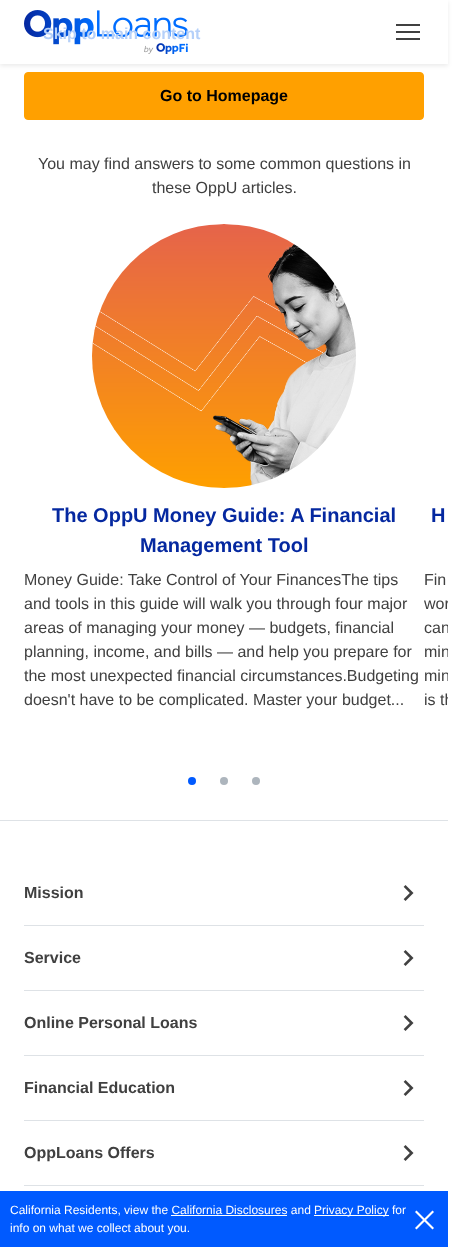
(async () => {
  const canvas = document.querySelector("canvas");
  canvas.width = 463;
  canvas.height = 1247;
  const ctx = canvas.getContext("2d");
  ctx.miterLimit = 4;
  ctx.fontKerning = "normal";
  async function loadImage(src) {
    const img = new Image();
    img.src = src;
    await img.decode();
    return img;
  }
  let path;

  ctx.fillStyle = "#ffffff";
  ctx.fillRect(0, 0, 463, 1247);
  ctx.fillStyle = "#ffa000";
  ctx.beginPath();
  ctx.roundRect(24.5, 72.5, 399, 47, 3.5);
  ctx.fill();
  ctx.strokeStyle = "#ffa000";
  ctx.stroke();
  ctx.fillStyle = "rgba(0, 0, 0, 0.08)";
  ctx.filter = "blur(2px)";
  ctx.beginPath();
  ctx.rect(0, 2, 448, 64);
  ctx.fill();
  ctx.filter = "none";
  ctx.fillStyle = "#ffffff";
  ctx.fillRect(0, 0, 448, 64);
  ctx.drawImage(await loadImage("img/1.png"), 24, 10, 164, 44);
  for (const [x, y, w, h, color] of [
    [396, 24, 24, 2, "#404040"],
    [396, 31, 24, 2, "#404040"],
    [396, 38, 24, 2, "#404040"],
  ]) {
    ctx.fillStyle = color;
    ctx.fillRect(x, y, w, h);
  }
  ctx.drawImage(await loadImage("img/2.png"), 92, 224, 264, 264);
  ctx.fillStyle = "#005aff";
  ctx.beginPath();
  ctx.arc(192, 781, 4, 0, Math.PI * 2);
  ctx.fill();
  ctx.fillStyle = "#adb5bd";
  ctx.beginPath();
  ctx.arc(224, 781, 4, 0, Math.PI * 2);
  ctx.fill();
  ctx.beginPath();
  ctx.arc(256, 781, 4, 0, Math.PI * 2);
  ctx.fill();
  ctx.fillStyle = "#dee2e6";
  ctx.fillRect(0, 820, 448, 1);
  ctx.fillRect(24, 925, 400, 1);
  ctx.drawImage(await loadImage("img/3.png"), 403, 885, 11, 16);
  ctx.fillRect(24, 990, 400, 1);
  ctx.drawImage(await loadImage("img/3.png"), 403, 950, 11, 16);
  ctx.fillRect(24, 1055, 400, 1);
  ctx.drawImage(await loadImage("img/3.png"), 403, 1015, 11, 16);
  ctx.fillRect(24, 1120, 400, 1);
  ctx.drawImage(await loadImage("img/3.png"), 403, 1080, 11, 16);
  ctx.fillRect(24, 1185, 400, 1);
  ctx.drawImage(await loadImage("img/3.png"), 403, 1145, 11, 16);
  for (const [x, y, w, h, color] of [
    [0, 1191, 448, 56, "#005aff"],
    [314, 1215, 75, 1, "#ffffff"],
    [171, 1215, 116, 1, "#ffffff"],
  ]) {
    ctx.fillStyle = color;
    ctx.fillRect(x, y, w, h);
  }
  path = new Path2D("M415 1228L432.5 1210.5L434 1212L416.5 1229.5Z");
  ctx.fill(path);
  path = new Path2D("M416.5 1210.5L434 1228L432.5 1229.5L415 1212Z");
  ctx.fill(path);
  ctx.font = "bold 16px Liberation Sans";
  ctx.fillStyle = "#b5d0f9";
  ctx.fillText("Skip to main content", 43, 39);
  ctx.fillStyle = "#000000";
  ctx.fillText("Go to Homepage", 160, 101);
  ctx.font = "16px Liberation Sans";
  ctx.fillStyle = "#404040";
  ctx.fillText("You may find answers to some common questions in", 38, 169);
  ctx.fillText("these OppU articles.", 152, 193);
  ctx.font = "bold 20px Liberation Sans";
  ctx.fillStyle = "#0528a0";
  ctx.fillText("The OppU Money Guide: A Financial", 52, 522);
  ctx.fillText("Management Tool", 140, 552);
  ctx.font = "16px Liberation Sans";
  ctx.fillStyle = "#404040";
  for (const [text, x, y] of [
    ["Money Guide: Take Control of Your FinancesThe tips", 24, 585],
    ["and tools in this guide will walk you through four major", 24, 609],
    ["areas of managing your money — budgets, financial", 24, 633],
    ["planning, income, and bills — and help you prepare for", 24, 657],
    ["the most unexpected financial circumstances.Budgeting", 24, 681],
    ["doesn't have to be complicated. Master your budget...", 24, 705],
  ]) {
    ctx.fillText(text, x, y);
  }
  ctx.font = "bold 20px Liberation Sans";
  ctx.fillStyle = "#0528a0";
  ctx.fillText("H", 431, 522);
  ctx.font = "16px Liberation Sans";
  ctx.fillStyle = "#404040";
  ctx.fillText("Fin", 424, 585);
  ctx.save();
  ctx.beginPath();
  ctx.rect(0, 152, 448, 668);
  ctx.clip();
  for (const [text, x, y] of [
    ["wor", 424, 609],
    ["can", 424, 633],
    ["min", 424, 657],
    ["min", 424, 681],
    ["is th", 424, 705],
  ]) {
    ctx.fillText(text, x, y);
  }
  ctx.restore();
  ctx.font = "bold 16px Liberation Sans";
  for (const [text, x, y] of [
    ["Mission", 24, 898],
    ["Service", 24, 963],
    ["Online Personal Loans", 24, 1028],
    ["Financial Education", 24, 1093],
    ["OppLoans Offers", 24, 1158],
  ]) {
    ctx.fillText(text, x, y);
  }
  ctx.font = "12px Liberation Sans";
  ctx.fillStyle = "#ffffff";
  for (const [text, x, y] of [
    ["California Residents, view the California Disclosures and", 10, 1214],
    ["Privacy Policy for", 314, 1214],
    ["info on what we collect about you.", 10, 1232],
  ]) {
    ctx.fillText(text, x, y);
  }
})();
